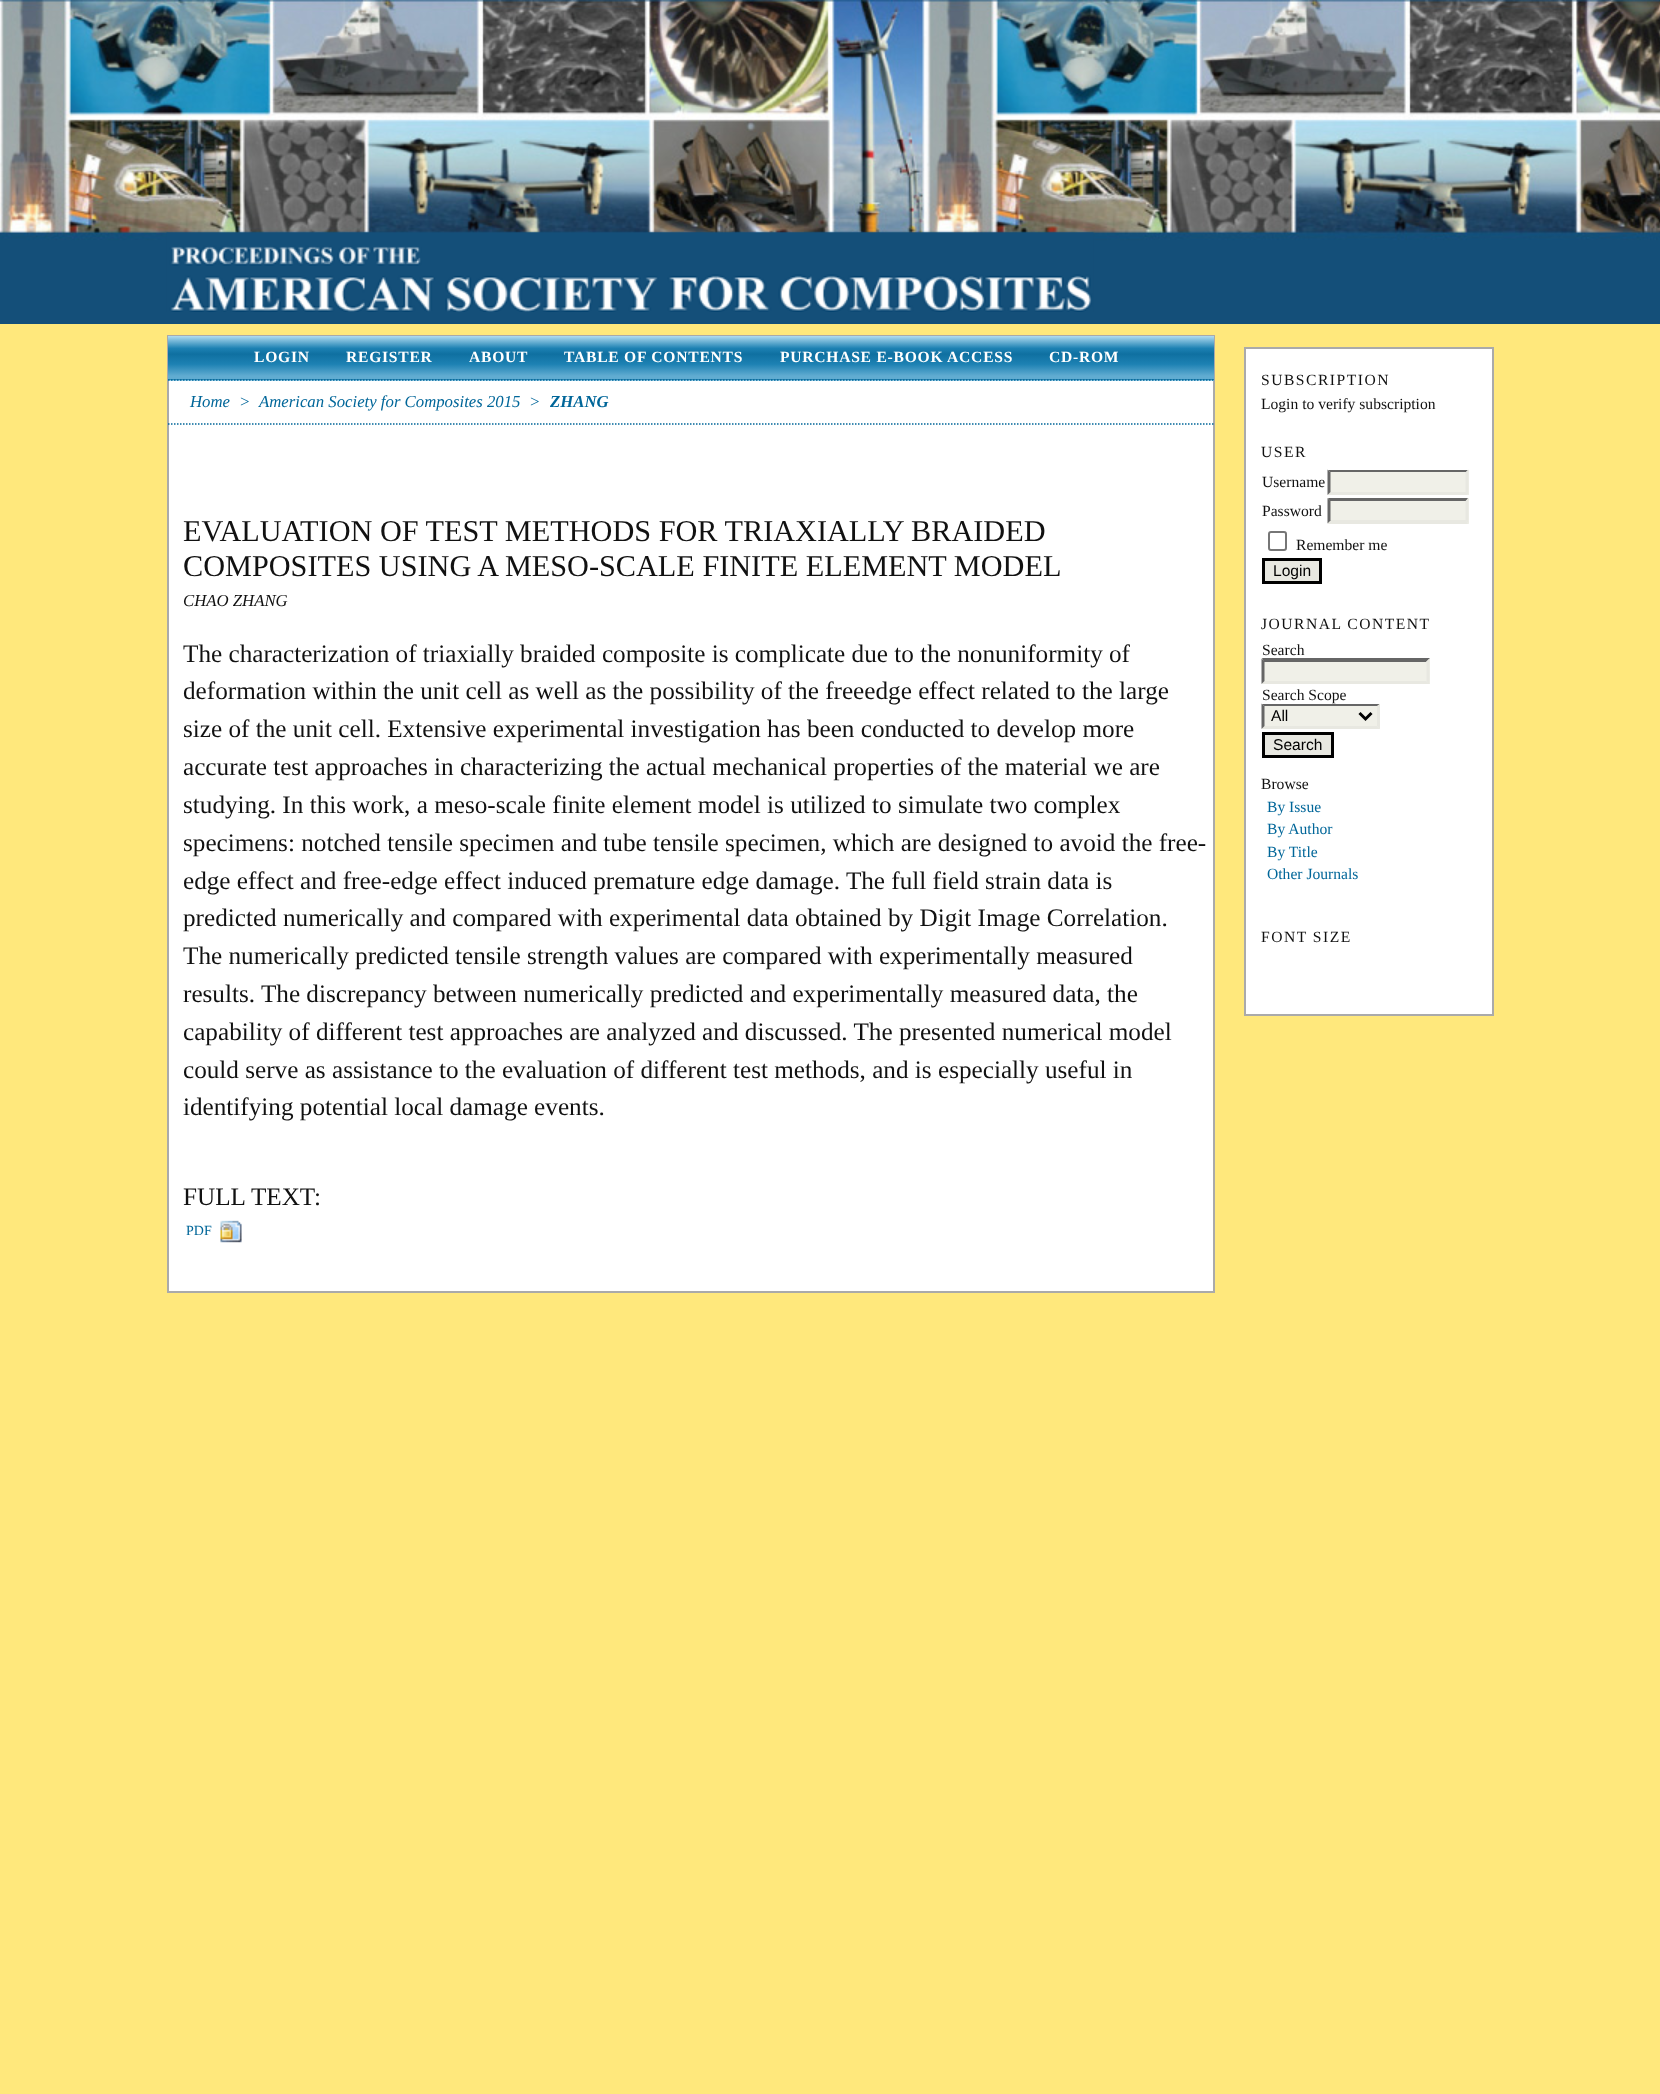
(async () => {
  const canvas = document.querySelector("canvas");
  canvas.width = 1660;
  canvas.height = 2094;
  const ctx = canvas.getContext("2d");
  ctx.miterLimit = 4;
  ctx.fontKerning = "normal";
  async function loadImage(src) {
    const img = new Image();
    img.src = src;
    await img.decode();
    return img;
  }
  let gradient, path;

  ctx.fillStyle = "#ffe87c";
  ctx.fillRect(0, 0, 1660, 2094);
  ctx.drawImage(await loadImage("img/1.png"), 0, 0, 1660, 324);
  ctx.drawImage(await loadImage("img/2.png"), 166, 232, 928, 80);
  ctx.fillStyle = "#ffffff";
  ctx.fillRect(169, 381, 1044, 910);
  ctx.strokeStyle = "#aaaaaa";
  ctx.lineWidth = 2;
  ctx.strokeRect(168, 336, 1046, 956);
  gradient = ctx.createLinearGradient(683, 336, 683, 380);
  gradient.addColorStop(0, "#b1dcf1");
  gradient.addColorStop(0.28, "#1d81b3");
  gradient.addColorStop(0.41, "#0f70a1");
  gradient.addColorStop(0.64, "#1d81b3");
  gradient.addColorStop(0.91, "#61acd1");
  gradient.addColorStop(0.97, "#61acd1");
  gradient.addColorStop(1, "#0f70a1");
  ctx.fillStyle = gradient;
  ctx.fillRect(168, 336, 1046, 44);
  gradient = ctx.createLinearGradient(683, 379, 683, 423);
  gradient.addColorStop(0, "#b1dcf1");
  gradient.addColorStop(0.28, "#1d81b3");
  gradient.addColorStop(0.41, "#0f70a1");
  gradient.addColorStop(0.64, "#1d81b3");
  gradient.addColorStop(0.91, "#61acd1");
  gradient.addColorStop(0.97, "#61acd1");
  gradient.addColorStop(1, "#0f70a1");
  ctx.fillStyle = gradient;
  ctx.fillRect(168, 380, 1046, 1);
  ctx.save();
  ctx.beginPath();
  ctx.rect(168, 336, 1046, 956);
  ctx.clip();
  path = new Path2D("M153 380H1213.5");
  ctx.strokeStyle = "#006699";
  ctx.lineWidth = 1.5;
  ctx.setLineDash([1.5, 1.5]);
  ctx.stroke(path);
  ctx.restore();
  path = new Path2D("M168 424H1213.5");
  ctx.strokeStyle = "#006699";
  ctx.lineWidth = 1.5;
  ctx.setLineDash([1.5, 1.5]);
  ctx.stroke(path);
  ctx.drawImage(await loadImage("img/3.png"), 220, 1220, 22, 23);
  ctx.fillStyle = "#ffffff";
  ctx.beginPath();
  ctx.rect(1245, 348, 248, 667);
  ctx.fill();
  ctx.strokeStyle = "#aaaaaa";
  ctx.lineWidth = 2;
  ctx.setLineDash([]);
  ctx.stroke();
  ctx.fillStyle = "#f0f0e8";
  ctx.fillRect(1328, 470, 141, 25);
  ctx.fillStyle = "#666666";
  path = new Path2D("M1328 470H1468L1466 472H1330Z");
  ctx.fill(path);
  ctx.fillStyle = "#e8e8e1";
  path = new Path2D("M1468.5 469.5V495L1465.5 492V472.5Z");
  ctx.fill(path);
  path = new Path2D("M1468 495H1328L1330 492H1466Z");
  ctx.fill(path);
  ctx.fillStyle = "#666666";
  path = new Path2D("M1327.5 495V469.5L1330.5 472.5V492Z");
  ctx.fill(path);
  ctx.fillStyle = "#f0f0e8";
  ctx.fillRect(1328, 498, 141, 26);
  ctx.fillStyle = "#666666";
  path = new Path2D("M1328 498H1468L1466 501H1330Z");
  ctx.fill(path);
  ctx.fillStyle = "#e8e8e1";
  path = new Path2D("M1468.5 498V523.5L1465.5 520.5V501Z");
  ctx.fill(path);
  path = new Path2D("M1468 524H1328L1330 520H1466Z");
  ctx.fill(path);
  ctx.fillStyle = "#666666";
  path = new Path2D("M1327.5 523.5V498L1330.5 501V520.5Z");
  ctx.fill(path);
  ctx.beginPath();
  ctx.roundRect(1269, 532, 17, 18, 2);
  ctx.strokeStyle = "#767676";
  ctx.stroke();
  ctx.fillStyle = "#e8e8e1";
  ctx.beginPath();
  ctx.rect(1263.5, 559.5, 57, 23);
  ctx.fill();
  ctx.strokeStyle = "#000000";
  ctx.lineWidth = 3;
  ctx.stroke();
  ctx.fillStyle = "#f0f0e8";
  ctx.fillRect(1262, 659, 168, 25);
  ctx.fillStyle = "#666666";
  path = new Path2D("M1262 658H1430L1426 662H1264Z");
  ctx.fill(path);
  ctx.fillStyle = "#e8e8e1";
  path = new Path2D("M1429.5 658.5V684L1426.5 681V661.5Z");
  ctx.fill(path);
  path = new Path2D("M1430 684H1262L1264 681H1426Z");
  ctx.fill(path);
  ctx.fillStyle = "#666666";
  path = new Path2D("M1261.5 684V658.5L1264.5 661.5V681Z");
  ctx.fill(path);
  ctx.fillStyle = "#f0f0e8";
  ctx.fillRect(1262, 704, 118, 25);
  ctx.fillStyle = "#666666";
  path = new Path2D("M1262 704H1380L1377 706H1264Z");
  ctx.fill(path);
  ctx.fillStyle = "#e8e8e1";
  path = new Path2D("M1380 703.5V729L1377 726V706.5Z");
  ctx.fill(path);
  path = new Path2D("M1380 729H1262L1264 726H1377Z");
  ctx.fill(path);
  path = new Path2D("M1359.5 713L1365.5 719L1371.5 713");
  ctx.stroke(path);
  ctx.beginPath();
  ctx.rect(1263.5, 733.5, 69, 23);
  ctx.fill();
  ctx.stroke();
  ctx.letterSpacing = "0.75px";
  ctx.font = "bold 15.6px Liberation Serif";
  ctx.fillStyle = "#ffffff";
  for (const [text, x, y] of [
    ["LOGIN", 254, 362],
    ["REGISTER", 346, 362],
    ["ABOUT", 469, 362],
    ["TABLE OF CONTENTS", 564, 362],
    ["PURCHASE E-BOOK ACCESS", 780, 362],
    ["CD-ROM", 1049, 362],
  ]) {
    ctx.fillText(text, x, y);
  }
  ctx.letterSpacing = "0px";
  ctx.font = "italic 16.75px Liberation Serif";
  ctx.fillStyle = "#006699";
  for (const [text, x, y] of [
    ["Home", 190, 407],
    [">", 239, 407],
    ["American Society for Composites 2015", 259, 407],
    [">", 529, 407],
  ]) {
    ctx.fillText(text, x, y);
  }
  ctx.font = "italic bold 16.75px Liberation Serif";
  ctx.fillText("ZHANG", 550, 407);
  ctx.font = "30.25px Liberation Serif";
  ctx.fillStyle = "#111111";
  ctx.fillText("EVALUATION OF TEST METHODS FOR TRIAXIALLY BRAIDED", 183, 541);
  ctx.fillText("COMPOSITES USING A MESO-SCALE FINITE ELEMENT MODEL", 183, 576);
  ctx.font = "italic 16.75px Liberation Serif";
  ctx.fillText("CHAO ZHANG", 183, 606);
  ctx.font = "25.2px Liberation Serif";
  for (const [text, x, y] of [
    ["The characterization of triaxially braided composite is complicate due to the nonuniformity of", 183, 662],
    ["deformation within the unit cell as well as the possibility of the freeedge effect related to the large", 183, 699],
    ["size of the unit cell. Extensive experimental investigation has been conducted to develop more", 183, 737],
    ["accurate test approaches in characterizing the actual mechanical properties of the material we are", 183, 775],
    ["studying. In this work, a meso-scale finite element model is utilized to simulate two complex", 183, 813],
    ["specimens: notched tensile specimen and tube tensile specimen, which are designed to avoid the free-", 183, 851],
    ["edge effect and free-edge effect induced premature edge damage. The full field strain data is", 183, 889],
    ["predicted numerically and compared with experimental data obtained by Digit Image Correlation.", 183, 926],
    ["The numerically predicted tensile strength values are compared with experimentally measured", 183, 964],
    ["results. The discrepancy between numerically predicted and experimentally measured data, the", 183, 1002],
    ["capability of different test approaches are analyzed and discussed. The presented numerical model", 183, 1040],
    ["could serve as assistance to the evaluation of different test methods, and is especially useful in", 183, 1078],
    ["identifying potential local damage events.", 183, 1115],
    ["FULL TEXT:", 183, 1205],
  ]) {
    ctx.fillText(text, x, y);
  }
  ctx.font = "14px Liberation Serif";
  ctx.fillStyle = "#006699";
  ctx.fillText("PDF", 186, 1235);
  ctx.letterSpacing = "1.5px";
  ctx.font = "15.6px Liberation Serif";
  ctx.fillStyle = "#111111";
  ctx.fillText("SUBSCRIPTION", 1261, 385);
  ctx.letterSpacing = "0px";
  ctx.fillText("Login to verify subscription", 1261, 409);
  ctx.letterSpacing = "1.5px";
  ctx.fillText("USER", 1261, 457);
  ctx.letterSpacing = "0px";
  for (const [text, x, y] of [
    ["Username", 1262, 487],
    ["Password", 1262, 516],
    ["Remember me", 1296, 550],
  ]) {
    ctx.fillText(text, x, y);
  }
  ctx.font = "15.6px Liberation Sans";
  ctx.fillStyle = "#000000";
  ctx.fillText("Login", 1273, 576);
  ctx.letterSpacing = "1.5px";
  ctx.font = "15.6px Liberation Serif";
  ctx.fillStyle = "#111111";
  ctx.fillText("JOURNAL CONTENT", 1261, 629);
  ctx.letterSpacing = "0px";
  ctx.fillText("Search", 1262, 655);
  ctx.fillText("Search Scope", 1262, 700);
  ctx.fillStyle = "#666666";
  path = new Path2D("M1261.5 729V703.5L1264.5 706.5V726Z");
  ctx.fill(path);
  ctx.font = "15.6px Liberation Sans";
  ctx.fillStyle = "#000000";
  ctx.fillText("All", 1271, 721);
  ctx.fillText("Search", 1273, 750);
  ctx.font = "15.6px Liberation Serif";
  ctx.fillStyle = "#111111";
  ctx.fillText("Browse", 1261, 789);
  ctx.fillStyle = "#006699";
  for (const [text, x, y] of [
    ["By Issue", 1267, 812],
    ["By Author", 1267, 834],
    ["By Title", 1267, 857],
    ["Other Journals", 1267, 879],
  ]) {
    ctx.fillText(text, x, y);
  }
  ctx.letterSpacing = "1.5px";
  ctx.fillStyle = "#111111";
  ctx.fillText("FONT SIZE", 1261, 942);
})();
